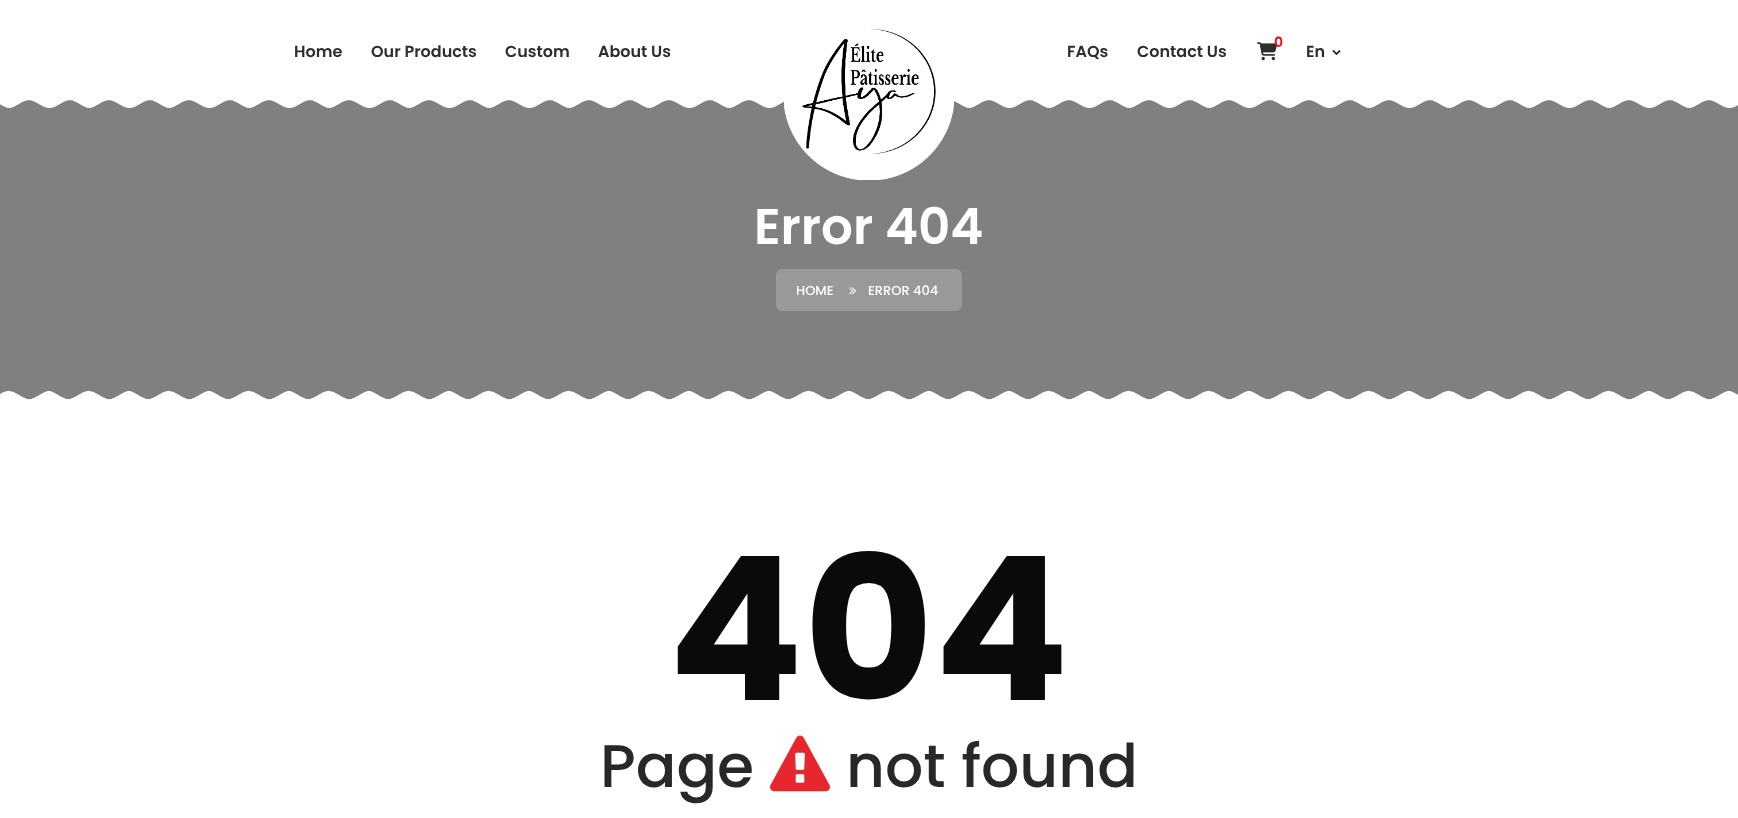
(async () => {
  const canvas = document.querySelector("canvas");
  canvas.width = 1738;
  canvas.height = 818;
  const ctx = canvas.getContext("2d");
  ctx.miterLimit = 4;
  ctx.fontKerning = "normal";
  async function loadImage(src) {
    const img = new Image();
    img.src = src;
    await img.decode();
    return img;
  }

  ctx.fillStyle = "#ffffff";
  ctx.fillRect(0, 0, 1738, 818);
  ctx.fillStyle = "#808080";
  ctx.fillRect(0, 100, 1738, 300);
  ctx.drawImage(await loadImage("img/4.png"), 0, 100, 1738, 8);
  ctx.drawImage(await loadImage("img/1.png"), 784, 29, 170, 151);
  ctx.drawImage(await loadImage("img/2.png"), 1257, 42, 21, 19);
  ctx.drawImage(await loadImage("img/3.png"), 1332, 50, 9, 6);
  ctx.fillStyle = "#999999";
  ctx.beginPath();
  ctx.roundRect(776, 269, 186, 42, 6);
  ctx.fill();
  ctx.drawImage(await loadImage("img/5.png"), 849, 287, 7, 8);
  ctx.drawImage(await loadImage("img/6.png"), 0, 391, 1738, 9);
  ctx.drawImage(await loadImage("img/7.png"), 770, 735, 60, 57);
  ctx.font = "600 16px Poppins";
  ctx.fillStyle = "#2b2d2e";
  for (const [text, x, y] of [
    ["Home", 294, 57],
    ["Our Products", 371, 57],
    ["Custom", 505, 57],
    ["About Us", 598, 57],
  ]) {
    ctx.fillText(text, x, y);
  }
  ctx.font = "600 14px Poppins";
  ctx.fillStyle = "#ff0000";
  ctx.fillText("0", 1274, 47);
  ctx.font = "600 16px Poppins";
  ctx.fillStyle = "#2b2d2e";
  for (const [text, x, y] of [
    ["FAQs", 1067, 57],
    ["Contact Us", 1137, 57],
    ["En", 1306, 57],
  ]) {
    ctx.fillText(text, x, y);
  }
  ctx.font = "600 50px Poppins";
  ctx.fillStyle = "#ffffff";
  ctx.fillText("Error 404", 754, 244);
  ctx.font = "500 13px Poppins";
  ctx.fillText("HOME", 796, 295);
  ctx.fillText("ERROR 404", 868, 295);
  ctx.font = "bold 200px Poppins";
  ctx.fillStyle = "#0a0a0a";
  ctx.fillText("404", 668, 700);
  ctx.font = "500 60px Poppins";
  ctx.fillStyle = "#282828";
  ctx.fillText("Page", 600, 787);
  ctx.fillText("not found", 846, 787);
})();
